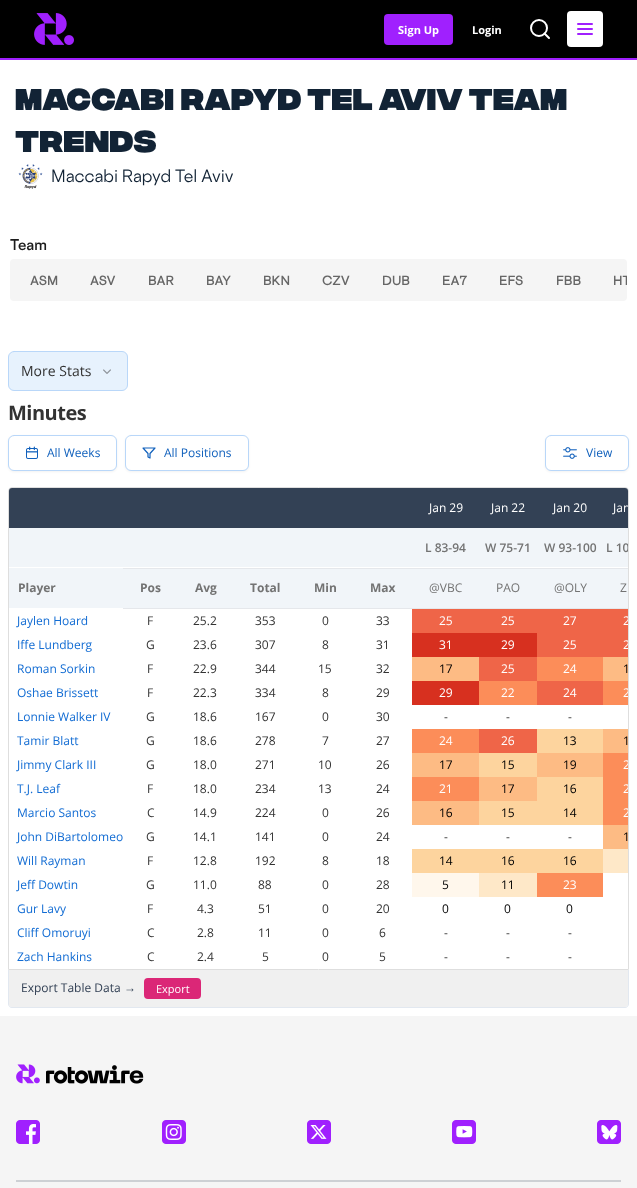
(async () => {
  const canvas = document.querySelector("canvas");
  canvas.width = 637;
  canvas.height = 1188;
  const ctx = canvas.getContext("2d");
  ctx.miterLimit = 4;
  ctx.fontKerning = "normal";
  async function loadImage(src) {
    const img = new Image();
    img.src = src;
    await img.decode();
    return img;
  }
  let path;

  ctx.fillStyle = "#ffffff";
  ctx.fillRect(0, 0, 637, 1188);
  ctx.fillStyle = "#000000";
  ctx.fillRect(0, 0, 637, 58);
  ctx.fillStyle = "#a020fe";
  ctx.fillRect(0, 58, 637, 2);
  ctx.drawImage(await loadImage("img/1.png"), 34, 13, 40, 32);
  ctx.beginPath();
  ctx.roundRect(384, 14, 69, 31, 4);
  ctx.fill();
  ctx.beginPath();
  ctx.arc(539, 28, 8, 0, Math.PI * 2);
  ctx.strokeStyle = "#ffffff";
  ctx.lineWidth = 2;
  ctx.stroke();
  path = new Path2D("M549 38L544.5 33.5");
  ctx.lineCap = "round";
  ctx.lineJoin = "round";
  ctx.stroke(path);
  ctx.fillStyle = "#ffffff";
  ctx.beginPath();
  ctx.roundRect(567, 11, 36, 36, 4);
  ctx.fill();
  ctx.fillStyle = "#a020fe";
  ctx.beginPath();
  ctx.roundRect(577, 23, 16, 2, 1);
  ctx.fill();
  ctx.beginPath();
  ctx.roundRect(577, 28, 16, 2, 1);
  ctx.fill();
  ctx.beginPath();
  ctx.roundRect(577, 33, 16, 2, 1);
  ctx.fill();
  ctx.drawImage(await loadImage("img/2.png"), 18, 164, 25, 25);
  ctx.fillStyle = "#f5f5f5";
  ctx.beginPath();
  ctx.roundRect(10, 259, 617, 42, 4);
  ctx.fill();
  ctx.fillStyle = "#e7f2fd";
  ctx.beginPath();
  ctx.roundRect(8.5, 351.5, 119, 39, 5.5);
  ctx.fill();
  ctx.strokeStyle = "#b9d7f9";
  ctx.lineWidth = 1;
  ctx.lineJoin = "miter";
  ctx.stroke();
  ctx.drawImage(await loadImage("img/3.png"), 103, 369, 8, 5);
  ctx.fillStyle = "rgba(0, 0, 0, 0.05)";
  ctx.filter = "blur(1px)";
  ctx.beginPath();
  ctx.roundRect(8, 436, 109, 36, 6);
  ctx.fill();
  ctx.filter = "none";
  ctx.fillStyle = "#ffffff";
  ctx.beginPath();
  ctx.roundRect(8.5, 435.5, 108, 35, 5.5);
  ctx.fill();
  ctx.stroke();
  ctx.drawImage(await loadImage("img/4.png"), 26, 446, 12, 13);
  ctx.fillStyle = "rgba(0, 0, 0, 0.05)";
  ctx.filter = "blur(1px)";
  ctx.beginPath();
  ctx.roundRect(125, 436, 124, 36, 6);
  ctx.fill();
  ctx.filter = "none";
  ctx.fillStyle = "#ffffff";
  ctx.beginPath();
  ctx.roundRect(125.5, 435.5, 123, 35, 5.5);
  ctx.fill();
  ctx.stroke();
  path = new Path2D("M155 448H143L148 453.5V457L150 458V453.5Z");
  ctx.strokeStyle = "#1060bc";
  ctx.lineWidth = 1.2;
  ctx.lineJoin = "round";
  ctx.stroke(path);
  ctx.fillStyle = "rgba(0, 0, 0, 0.05)";
  ctx.filter = "blur(1px)";
  ctx.beginPath();
  ctx.roundRect(545, 436, 84, 36, 6);
  ctx.fill();
  ctx.filter = "none";
  ctx.fillStyle = "#ffffff";
  ctx.beginPath();
  ctx.roundRect(545.5, 435.5, 83, 35, 5.5);
  ctx.fill();
  ctx.strokeStyle = "#b9d7f9";
  ctx.lineWidth = 1;
  ctx.lineJoin = "miter";
  ctx.stroke();
  ctx.drawImage(await loadImage("img/5.png"), 563, 447, 14, 12);
  ctx.beginPath();
  ctx.roundRect(8.5, 487.5, 620, 482, [3.5, 3.5, 0, 0]);
  ctx.strokeStyle = "#dedede";
  ctx.stroke();
  ctx.fillStyle = "#334155";
  ctx.beginPath();
  ctx.roundRect(9, 488, 114, 40, [3, 0, 0, 0]);
  ctx.fill();
  ctx.fillRect(123, 488, 480, 40);
  ctx.beginPath();
  ctx.roundRect(603, 488, 25, 40, [0, 3, 0, 0]);
  ctx.fill();
  for (const [x, y, w, h, color] of [
    [123, 568, 505, 1, "#e5e7eb"],
    [9, 528, 619, 39, "#f1f5f9"],
    [123, 608, 505, 1, "#e5e7eb"],
    [9, 568, 114, 40, "#f1f5f9"],
    [123, 569, 505, 39, "#f1f5f9"],
    [412, 609, 216, 24, "#ef6548"],
    [412, 633, 125, 24, "#d7301f"],
    [537, 633, 91, 24, "#ef6548"],
    [412, 657, 67, 24, "#fdbb84"],
    [479, 657, 58, 24, "#ef6548"],
    [537, 657, 66, 24, "#fc8d59"],
    [603, 657, 25, 24, "#fdbb84"],
    [412, 681, 67, 24, "#d7301f"],
    [479, 681, 58, 24, "#fc8d59"],
    [537, 681, 66, 24, "#ef6548"],
    [603, 681, 25, 24, "#fc8d59"],
    [412, 729, 67, 24, "#fc8d59"],
    [479, 729, 58, 24, "#ef6548"],
    [537, 729, 66, 24, "#fdd49e"],
    [603, 729, 25, 24, "#fdbb84"],
    [412, 753, 67, 24, "#fdbb84"],
    [479, 753, 58, 24, "#fdd49e"],
    [537, 753, 66, 24, "#fdbb84"],
    [603, 753, 25, 72, "#fc8d59"],
    [412, 777, 67, 24, "#fc8d59"],
    [479, 777, 58, 24, "#fdbb84"],
    [537, 777, 66, 24, "#fdd49e"],
    [412, 801, 67, 24, "#fdbb84"],
    [479, 801, 124, 24, "#fdd49e"],
    [603, 825, 25, 24, "#fdbb84"],
    [412, 849, 191, 24, "#fdd49e"],
    [603, 849, 25, 24, "#fee8c8"],
    [412, 873, 67, 24, "#fff7ec"],
    [479, 873, 58, 24, "#fee8c8"],
    [537, 873, 66, 24, "#fc8d59"],
  ]) {
    ctx.fillStyle = color;
    ctx.fillRect(x, y, w, h);
  }
  ctx.fillStyle = "#f0f0f0";
  ctx.beginPath();
  ctx.roundRect(9, 970, 619, 37, [0, 0, 3, 3]);
  ctx.fill();
  ctx.fillStyle = "#e2e8f0";
  path = new Path2D("M8 970H629V1004C629 1006 627 1008 625 1008H12C10 1008 8 1006 8 1004ZM9 970H628V1004C628 1006 627 1007 625 1007H12C10 1007 9 1006 9 1004Z");
  ctx.fill(path, "evenodd");
  ctx.fillStyle = "#db2777";
  ctx.beginPath();
  ctx.roundRect(144, 978, 57, 21, 4);
  ctx.fill();
  ctx.fillStyle = "#f5f5f5";
  ctx.fillRect(0, 1016, 637, 172);
  ctx.drawImage(await loadImage("img/6.png"), 16, 1064, 128, 20);
  ctx.drawImage(await loadImage("img/7.png"), 16, 1120, 24, 24);
  ctx.drawImage(await loadImage("img/8.png"), 162, 1120, 24, 24);
  ctx.drawImage(await loadImage("img/9.png"), 307, 1120, 24, 24);
  ctx.drawImage(await loadImage("img/10.png"), 452, 1120, 24, 24);
  ctx.drawImage(await loadImage("img/11.png"), 597, 1120, 24, 24);
  ctx.fillStyle = "#cdd0d4";
  ctx.fillRect(16, 1180, 605, 2);
  ctx.font = "bold 11px Open Sans";
  ctx.fillStyle = "#ffffff";
  ctx.fillText("Sign Up", 398, 34);
  ctx.fillText("Login", 472, 34);
  ctx.font = "900 30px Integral";
  ctx.fillStyle = "#122335";
  ctx.fillText("Maccabi Rapyd Tel Aviv Team", 15, 110);
  ctx.fillText("Trends", 15, 152);
  ctx.font = "800 16px 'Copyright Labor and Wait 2'";
  ctx.fillText("Maccabi Rapyd Tel Aviv", 51, 182);
  ctx.font = "800 14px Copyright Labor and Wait";
  ctx.fillStyle = "#1c1c1c";
  ctx.fillText("Team", 10, 250);
  ctx.font = "800 12px Copyright Labor and Wait";
  ctx.fillStyle = "#666666";
  for (const [text, x, y] of [
    ["ASM", 30, 285],
    ["ASV", 90, 285],
    ["BAR", 148, 285],
    ["BAY", 206, 285],
    ["BKN", 263, 285],
    ["CZV", 322, 285],
    ["DUB", 382, 285],
    ["EA7", 442, 285],
    ["EFS", 499, 285],
    ["FBB", 556, 285],
  ]) {
    ctx.fillText(text, x, y);
  }
  ctx.save();
  ctx.beginPath();
  ctx.roundRect(10, 259, 617, 42, 4);
  ctx.clip();
  ctx.fillText("HT", 613, 285);
  ctx.restore();
  ctx.font = "14px Open Sans";
  ctx.fillStyle = "#333333";
  ctx.fillText("More Stats", 21, 376);
  ctx.letterSpacing = "-0.5px";
  ctx.font = "bold 20px Open Sans";
  ctx.fillText("Minutes", 8, 420);
  ctx.letterSpacing = "0px";
  ctx.font = "12px Open Sans";
  ctx.fillStyle = "#1060bc";
  for (const [text, x, y] of [
    ["All Weeks", 47, 457],
    ["All Positions", 164, 457],
    ["View", 586, 457],
  ]) {
    ctx.fillText(text, x, y);
  }
  ctx.fillStyle = "#ffffff";
  for (const [text, x, y] of [
    ["Jan 29", 429, 512],
    ["Jan 22", 491, 512],
    ["Jan 20", 553, 512],
  ]) {
    ctx.fillText(text, x, y);
  }
  ctx.save();
  ctx.beginPath();
  ctx.roundRect(9, 488, 619, 481, [0, 0, 4, 4]);
  ctx.clip();
  ctx.fillText("Jan", 613, 512);
  ctx.restore();
  ctx.font = "600 12px Open Sans";
  ctx.fillStyle = "#737373";
  for (const [text, x, y] of [
    ["L 83-94", 425, 552],
    ["W 75-71", 485, 552],
    ["W 93-100", 544, 552],
  ]) {
    ctx.fillText(text, x, y);
  }
  ctx.save();
  ctx.beginPath();
  ctx.roundRect(9, 488, 619, 481, [0, 0, 4, 4]);
  ctx.clip();
  ctx.fillText("L 10", 606, 552);
  ctx.restore();
  ctx.font = "bold 12px Open Sans";
  for (const [text, x, y] of [
    ["Player", 18, 592],
    ["Pos", 140, 592],
    ["Avg", 195, 592],
    ["Total", 250, 592],
    ["Min", 314, 592],
    ["Max", 370, 592],
  ]) {
    ctx.fillText(text, x, y);
  }
  ctx.font = "12px Open Sans";
  for (const [text, x, y] of [
    ["@VBC", 429, 592],
    ["PAO", 496, 592],
    ["@OLY", 554, 592],
    ["Z", 620, 592],
  ]) {
    ctx.fillText(text, x, y);
  }
  ctx.fillStyle = "#126cd3";
  ctx.fillText("Jaylen Hoard", 17, 625);
  ctx.fillStyle = "#333333";
  for (const [text, x, y] of [
    ["F", 147, 625],
    ["25.2", 193, 625],
    ["353", 255, 625],
    ["0", 322, 625],
    ["33", 376, 625],
  ]) {
    ctx.fillText(text, x, y);
  }
  ctx.fillStyle = "#ffffff";
  for (const [text, x, y] of [
    ["25", 439, 625],
    ["25", 501, 625],
    ["27", 563, 625],
  ]) {
    ctx.fillText(text, x, y);
  }
  ctx.save();
  ctx.beginPath();
  ctx.roundRect(9, 488, 619, 481, [0, 0, 4, 4]);
  ctx.clip();
  ctx.fillText("2", 623, 625);
  ctx.restore();
  ctx.fillStyle = "#126cd3";
  ctx.fillText("Iffe Lundberg", 17, 649);
  ctx.fillStyle = "#333333";
  for (const [text, x, y] of [
    ["G", 146, 649],
    ["23.6", 193, 649],
    ["307", 255, 649],
    ["8", 322, 649],
    ["31", 376, 649],
  ]) {
    ctx.fillText(text, x, y);
  }
  ctx.fillStyle = "#ffffff";
  for (const [text, x, y] of [
    ["31", 439, 649],
    ["29", 501, 649],
    ["25", 563, 649],
  ]) {
    ctx.fillText(text, x, y);
  }
  ctx.save();
  ctx.beginPath();
  ctx.roundRect(9, 488, 619, 481, [0, 0, 4, 4]);
  ctx.clip();
  ctx.fillText("2", 623, 649);
  ctx.restore();
  ctx.fillStyle = "#126cd3";
  ctx.fillText("Roman Sorkin", 17, 673);
  ctx.fillStyle = "#333333";
  for (const [text, x, y] of [
    ["F", 147, 673],
    ["22.9", 193, 673],
    ["344", 255, 673],
    ["15", 318, 673],
    ["32", 376, 673],
  ]) {
    ctx.fillText(text, x, y);
  }
  ctx.fillStyle = "#000000";
  ctx.fillText("17", 439, 673);
  ctx.fillStyle = "#ffffff";
  ctx.fillText("25", 501, 673);
  ctx.fillText("24", 563, 673);
  ctx.fillStyle = "#000000";
  ctx.fillText("1", 623, 673);
  ctx.fillStyle = "#126cd3";
  ctx.fillText("Oshae Brissett", 17, 697);
  ctx.fillStyle = "#333333";
  for (const [text, x, y] of [
    ["F", 147, 697],
    ["22.3", 193, 697],
    ["334", 255, 697],
    ["8", 322, 697],
    ["29", 376, 697],
  ]) {
    ctx.fillText(text, x, y);
  }
  ctx.fillStyle = "#ffffff";
  for (const [text, x, y] of [
    ["29", 439, 697],
    ["22", 501, 697],
    ["24", 563, 697],
  ]) {
    ctx.fillText(text, x, y);
  }
  ctx.save();
  ctx.beginPath();
  ctx.roundRect(9, 488, 619, 481, [0, 0, 4, 4]);
  ctx.clip();
  ctx.fillText("2", 623, 697);
  ctx.restore();
  ctx.fillStyle = "#126cd3";
  ctx.fillText("Lonnie Walker IV", 17, 721);
  ctx.fillStyle = "#333333";
  for (const [text, x, y] of [
    ["G", 146, 721],
    ["18.6", 193, 721],
    ["167", 255, 721],
    ["0", 322, 721],
    ["30", 376, 721],
    ["-", 444, 721],
    ["-", 506, 721],
    ["-", 568, 721],
  ]) {
    ctx.fillText(text, x, y);
  }
  ctx.fillStyle = "#126cd3";
  ctx.fillText("Tamir Blatt", 17, 745);
  ctx.fillStyle = "#333333";
  for (const [text, x, y] of [
    ["G", 146, 745],
    ["18.6", 193, 745],
    ["278", 255, 745],
    ["7", 322, 745],
    ["27", 376, 745],
  ]) {
    ctx.fillText(text, x, y);
  }
  ctx.fillStyle = "#ffffff";
  ctx.fillText("24", 439, 745);
  ctx.fillText("26", 501, 745);
  ctx.fillStyle = "#000000";
  ctx.fillText("13", 563, 745);
  ctx.fillText("1", 623, 745);
  ctx.fillStyle = "#126cd3";
  ctx.fillText("Jimmy Clark III", 17, 769);
  ctx.fillStyle = "#333333";
  for (const [text, x, y] of [
    ["G", 146, 769],
    ["18.0", 193, 769],
    ["271", 255, 769],
    ["10", 318, 769],
    ["26", 376, 769],
  ]) {
    ctx.fillText(text, x, y);
  }
  ctx.fillStyle = "#000000";
  for (const [text, x, y] of [
    ["17", 439, 769],
    ["15", 501, 769],
    ["19", 563, 769],
  ]) {
    ctx.fillText(text, x, y);
  }
  ctx.save();
  ctx.beginPath();
  ctx.roundRect(9, 488, 619, 481, [0, 0, 4, 4]);
  ctx.clip();
  ctx.fillStyle = "#ffffff";
  ctx.fillText("2", 623, 769);
  ctx.restore();
  ctx.fillStyle = "#126cd3";
  ctx.fillText("T.J. Leaf", 17, 793);
  ctx.fillStyle = "#333333";
  for (const [text, x, y] of [
    ["F", 147, 793],
    ["18.0", 193, 793],
    ["234", 255, 793],
    ["13", 318, 793],
    ["24", 376, 793],
  ]) {
    ctx.fillText(text, x, y);
  }
  ctx.fillStyle = "#ffffff";
  ctx.fillText("21", 439, 793);
  ctx.fillStyle = "#000000";
  ctx.fillText("17", 501, 793);
  ctx.fillText("16", 563, 793);
  ctx.save();
  ctx.beginPath();
  ctx.roundRect(9, 488, 619, 481, [0, 0, 4, 4]);
  ctx.clip();
  ctx.fillStyle = "#ffffff";
  ctx.fillText("2", 623, 793);
  ctx.restore();
  ctx.fillStyle = "#126cd3";
  ctx.fillText("Marcio Santos", 17, 817);
  ctx.fillStyle = "#333333";
  for (const [text, x, y] of [
    ["C", 147, 817],
    ["14.9", 193, 817],
    ["224", 255, 817],
    ["0", 322, 817],
    ["26", 376, 817],
  ]) {
    ctx.fillText(text, x, y);
  }
  ctx.fillStyle = "#000000";
  for (const [text, x, y] of [
    ["16", 439, 817],
    ["15", 501, 817],
    ["14", 563, 817],
  ]) {
    ctx.fillText(text, x, y);
  }
  ctx.save();
  ctx.beginPath();
  ctx.roundRect(9, 488, 619, 481, [0, 0, 4, 4]);
  ctx.clip();
  ctx.fillStyle = "#ffffff";
  ctx.fillText("2", 623, 817);
  ctx.restore();
  ctx.fillStyle = "#126cd3";
  ctx.fillText("John DiBartolomeo", 17, 841);
  ctx.fillStyle = "#333333";
  for (const [text, x, y] of [
    ["G", 146, 841],
    ["14.1", 193, 841],
    ["141", 255, 841],
    ["0", 322, 841],
    ["24", 376, 841],
    ["-", 444, 841],
    ["-", 506, 841],
    ["-", 568, 841],
  ]) {
    ctx.fillText(text, x, y);
  }
  ctx.fillStyle = "#000000";
  ctx.fillText("1", 623, 841);
  ctx.fillStyle = "#126cd3";
  ctx.fillText("Will Rayman", 17, 865);
  ctx.fillStyle = "#333333";
  for (const [text, x, y] of [
    ["F", 147, 865],
    ["12.8", 193, 865],
    ["192", 255, 865],
    ["8", 322, 865],
    ["18", 376, 865],
  ]) {
    ctx.fillText(text, x, y);
  }
  ctx.fillStyle = "#000000";
  for (const [text, x, y] of [
    ["14", 439, 865],
    ["16", 501, 865],
    ["16", 563, 865],
  ]) {
    ctx.fillText(text, x, y);
  }
  ctx.fillStyle = "#126cd3";
  ctx.fillText("Jeff Dowtin", 17, 889);
  ctx.fillStyle = "#333333";
  for (const [text, x, y] of [
    ["G", 146, 889],
    ["11.0", 193, 889],
    ["88", 258, 889],
    ["0", 322, 889],
    ["28", 376, 889],
  ]) {
    ctx.fillText(text, x, y);
  }
  ctx.fillStyle = "#000000";
  ctx.fillText("5", 442, 889);
  ctx.fillText("11", 501, 889);
  ctx.fillStyle = "#ffffff";
  ctx.fillText("23", 563, 889);
  ctx.fillStyle = "#126cd3";
  ctx.fillText("Gur Lavy", 17, 913);
  ctx.fillStyle = "#333333";
  for (const [text, x, y] of [
    ["F", 147, 913],
    ["4.3", 197, 913],
    ["51", 258, 913],
    ["0", 322, 913],
    ["20", 376, 913],
  ]) {
    ctx.fillText(text, x, y);
  }
  ctx.fillStyle = "#000000";
  for (const [text, x, y] of [
    ["0", 442, 913],
    ["0", 504, 913],
    ["0", 566, 913],
  ]) {
    ctx.fillText(text, x, y);
  }
  ctx.fillStyle = "#126cd3";
  ctx.fillText("Cliff Omoruyi", 17, 937);
  ctx.fillStyle = "#333333";
  for (const [text, x, y] of [
    ["C", 147, 937],
    ["2.8", 197, 937],
    ["11", 258, 937],
    ["0", 322, 937],
    ["6", 379, 937],
    ["-", 444, 937],
    ["-", 506, 937],
    ["-", 568, 937],
  ]) {
    ctx.fillText(text, x, y);
  }
  ctx.fillStyle = "#126cd3";
  ctx.fillText("Zach Hankins", 17, 961);
  ctx.fillStyle = "#333333";
  for (const [text, x, y] of [
    ["C", 147, 961],
    ["2.4", 197, 961],
    ["5", 262, 961],
    ["0", 322, 961],
    ["5", 379, 961],
    ["-", 444, 961],
    ["-", 506, 961],
    ["-", 568, 961],
  ]) {
    ctx.fillText(text, x, y);
  }
  ctx.fillStyle = "#334155";
  ctx.fillText("Export Table Data", 21, 992);
  ctx.font = "12px Liberation Sans";
  ctx.fillText("→", 124, 992);
  ctx.font = "11px Open Sans";
  ctx.fillStyle = "#ffffff";
  ctx.fillText("Export", 156, 993);
})();
